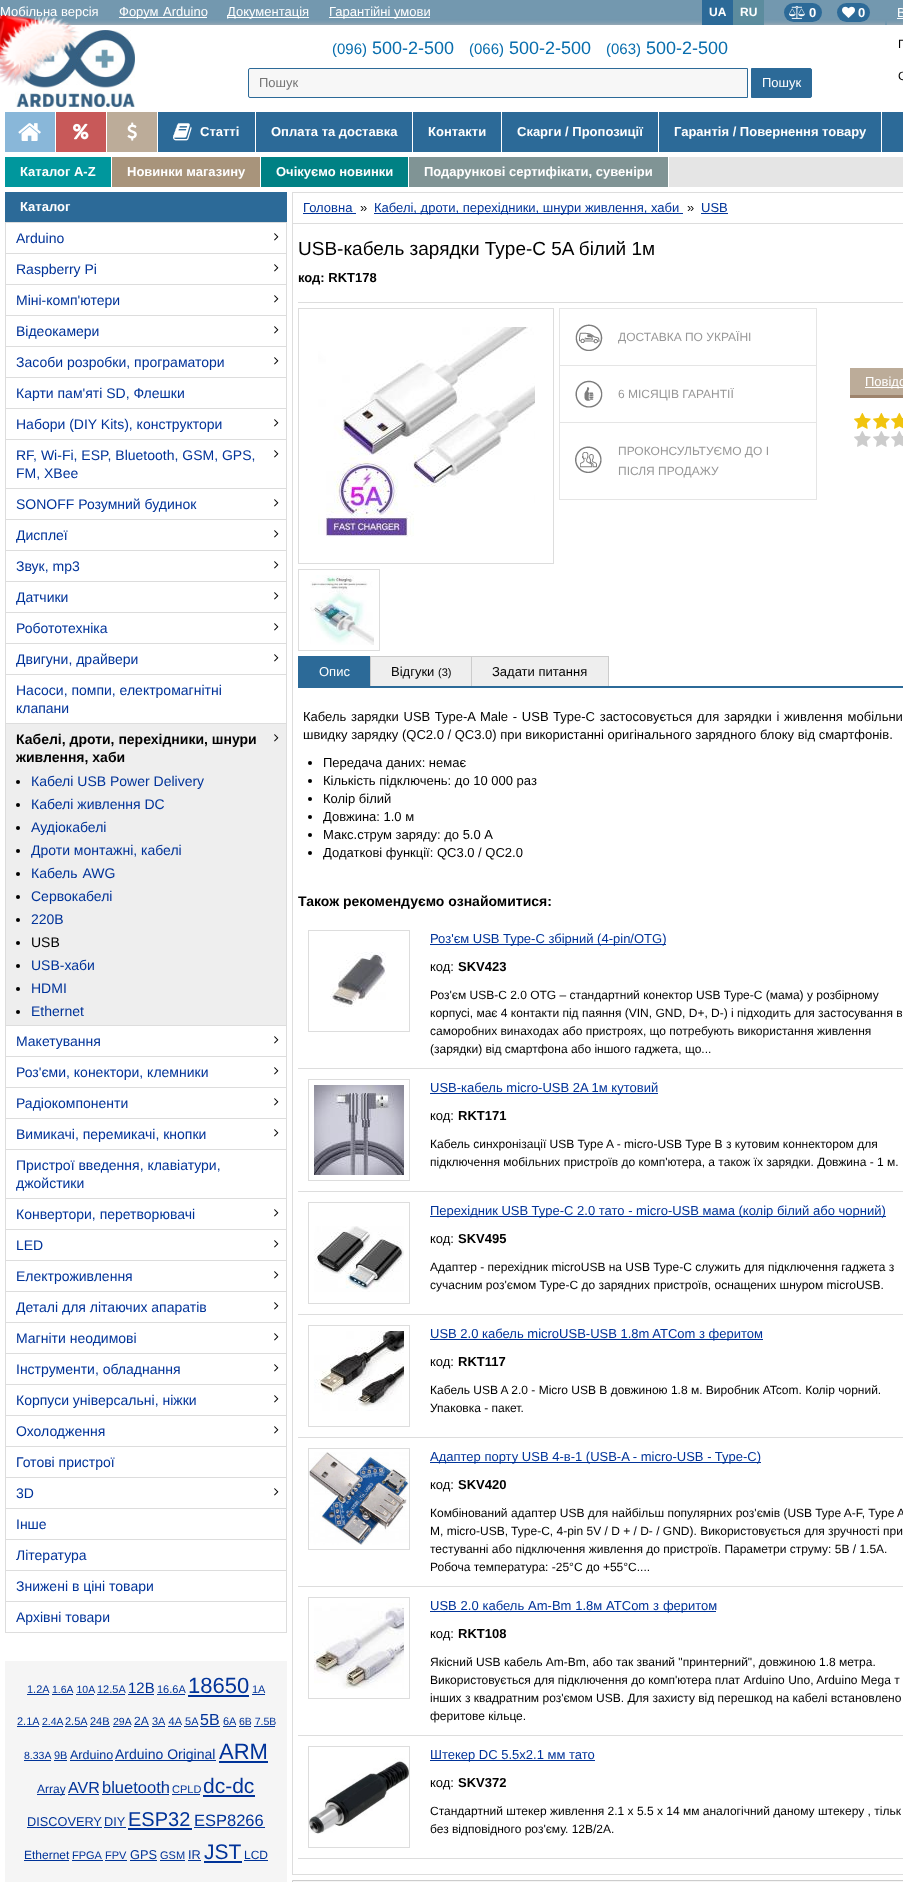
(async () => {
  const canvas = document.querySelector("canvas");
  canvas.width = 903;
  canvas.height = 1882;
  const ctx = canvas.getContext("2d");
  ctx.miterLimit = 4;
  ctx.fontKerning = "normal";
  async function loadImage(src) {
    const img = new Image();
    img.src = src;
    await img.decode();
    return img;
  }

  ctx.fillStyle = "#7398af";
  ctx.fillRect(0, 0, 903, 1882);
  ctx.fillStyle = "#bbbbbb";
  ctx.filter = "blur(2.5px)";
  ctx.beginPath();
  ctx.rect(0, 25, 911, 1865);
  ctx.fill();
  ctx.filter = "none";
  for (const [x, y, w, h, color] of [
    [119, 17, 88, 1, "#ffffff"],
    [227, 17, 82, 1, "#ffffff"],
    [329, 17, 101, 1, "#ffffff"],
    [702, 0, 31, 25, "#2c6a98"],
    [733, 0, 31, 25, "#5c8c9e"],
  ]) {
    ctx.fillStyle = color;
    ctx.fillRect(x, y, w, h);
  }
  ctx.fillStyle = "#2c6a98";
  ctx.beginPath();
  ctx.roundRect(784, 3, 38, 19, 9.5);
  ctx.fill();
  ctx.drawImage(await loadImage("img/1.png"), 789, 5, 16, 14);
  ctx.beginPath();
  ctx.roundRect(837, 3, 33, 19, 9.5);
  ctx.fill();
  ctx.drawImage(await loadImage("img/2.png"), 842, 6, 13, 12);
  for (const [x, y, w, h, color] of [
    [885, 21, 2, 4, "#7398af"],
    [897, 18, 6, 1, "#ffffff"],
    [0, 25, 903, 1857, "#ffffff"],
  ]) {
    ctx.fillStyle = color;
    ctx.fillRect(x, y, w, h);
  }
  ctx.drawImage(await loadImage("img/4.png"), 15, 30, 120, 77);
  ctx.drawImage(await loadImage("img/3.png"), 0, 15, 80, 71);
  ctx.fillStyle = "#f7f7f7";
  ctx.beginPath();
  ctx.roundRect(248.5, 68.5, 499, 29, [1.5, 0, 0, 1.5]);
  ctx.fill();
  ctx.strokeStyle = "#2c6a98";
  ctx.stroke();
  ctx.fillStyle = "#2c6a98";
  ctx.beginPath();
  ctx.roundRect(751.5, 68.5, 60, 29, [0, 1.5, 1.5, 0]);
  ctx.fill();
  ctx.stroke();
  ctx.fillRect(158, 112, 745, 40);
  ctx.fillStyle = "#89b7d9";
  ctx.fillRect(5, 112, 50, 40);
  ctx.drawImage(await loadImage("img/5.png"), 18, 123, 23, 18);
  ctx.fillStyle = "#c85959";
  ctx.fillRect(56, 112, 50, 40);
  ctx.drawImage(await loadImage("img/6.png"), 73, 123, 16, 17);
  ctx.fillStyle = "#bcac99";
  ctx.fillRect(107, 112, 50, 40);
  ctx.drawImage(await loadImage("img/7.png"), 127, 122, 10, 19);
  ctx.drawImage(await loadImage("img/8.png"), 173, 123, 19, 18);
  for (const [x, y, w, h, color] of [
    [255, 112, 1, 40, "#ffffff"],
    [412, 112, 1, 40, "#ffffff"],
    [501, 112, 1, 40, "#ffffff"],
    [658, 112, 1, 40, "#ffffff"],
    [881, 112, 1, 40, "#ffffff"],
    [669, 157, 234, 30, "#e5e5e5"],
    [5, 157, 106, 30, "#00979d"],
    [112, 157, 148, 30, "#a8947b"],
    [261, 157, 147, 30, "#008184"],
    [409, 157, 259, 30, "#809495"],
    [5, 192, 282, 30, "#2c6a98"],
    [5, 222, 282, 1, "#dddddd"],
    [286, 222, 1, 1411, "#dddddd"],
    [5, 222, 1, 1411, "#dddddd"],
    [6, 253, 280, 1, "#dddddd"],
  ]) {
    ctx.fillStyle = color;
    ctx.fillRect(x, y, w, h);
  }
  ctx.drawImage(await loadImage("img/9.png"), 274, 233, 5, 8);
  ctx.fillRect(6, 284, 280, 1);
  ctx.drawImage(await loadImage("img/9.png"), 274, 264, 5, 8);
  ctx.fillRect(6, 315, 280, 1);
  ctx.drawImage(await loadImage("img/9.png"), 274, 295, 5, 8);
  ctx.fillRect(6, 346, 280, 1);
  ctx.drawImage(await loadImage("img/9.png"), 274, 326, 5, 8);
  ctx.fillRect(6, 377, 280, 1);
  ctx.drawImage(await loadImage("img/9.png"), 274, 357, 5, 8);
  ctx.fillRect(6, 408, 280, 1);
  ctx.fillRect(6, 439, 280, 1);
  ctx.drawImage(await loadImage("img/9.png"), 274, 419, 5, 8);
  ctx.fillRect(6, 488, 280, 1);
  ctx.drawImage(await loadImage("img/9.png"), 274, 450, 5, 8);
  ctx.fillRect(6, 519, 280, 1);
  ctx.drawImage(await loadImage("img/9.png"), 274, 499, 5, 8);
  ctx.fillRect(6, 550, 280, 1);
  ctx.drawImage(await loadImage("img/9.png"), 274, 530, 5, 8);
  ctx.fillRect(6, 581, 280, 1);
  ctx.drawImage(await loadImage("img/9.png"), 274, 561, 5, 8);
  ctx.fillRect(6, 612, 280, 1);
  ctx.drawImage(await loadImage("img/9.png"), 274, 592, 5, 8);
  ctx.fillRect(6, 643, 280, 1);
  ctx.drawImage(await loadImage("img/9.png"), 274, 623, 5, 8);
  ctx.fillRect(6, 674, 280, 1);
  ctx.drawImage(await loadImage("img/9.png"), 274, 654, 5, 8);
  for (const [x, y, w, h, color] of [
    [6, 723, 280, 1, "#dddddd"],
    [6, 724, 280, 301, "#eeeeee"],
    [6, 1025, 280, 1, "#dddddd"],
  ]) {
    ctx.fillStyle = color;
    ctx.fillRect(x, y, w, h);
  }
  ctx.drawImage(await loadImage("img/10.png"), 274, 734, 5, 8);
  ctx.fillStyle = "#000000";
  ctx.beginPath();
  ctx.arc(18, 782, 2, 0, Math.PI * 2);
  ctx.fill();
  ctx.beginPath();
  ctx.arc(18, 805, 2, 0, Math.PI * 2);
  ctx.fill();
  ctx.beginPath();
  ctx.arc(18, 828, 2, 0, Math.PI * 2);
  ctx.fill();
  ctx.beginPath();
  ctx.arc(18, 851, 2, 0, Math.PI * 2);
  ctx.fill();
  ctx.beginPath();
  ctx.arc(18, 874, 2, 0, Math.PI * 2);
  ctx.fill();
  ctx.beginPath();
  ctx.arc(18, 897, 2, 0, Math.PI * 2);
  ctx.fill();
  ctx.beginPath();
  ctx.arc(18, 920, 2, 0, Math.PI * 2);
  ctx.fill();
  ctx.beginPath();
  ctx.arc(18, 943, 2, 0, Math.PI * 2);
  ctx.fill();
  ctx.beginPath();
  ctx.arc(18, 966, 2, 0, Math.PI * 2);
  ctx.fill();
  ctx.beginPath();
  ctx.arc(18, 989, 2, 0, Math.PI * 2);
  ctx.fill();
  ctx.beginPath();
  ctx.arc(18, 1012, 2, 0, Math.PI * 2);
  ctx.fill();
  ctx.fillStyle = "#dddddd";
  ctx.fillRect(6, 1056, 280, 1);
  ctx.drawImage(await loadImage("img/9.png"), 274, 1036, 5, 8);
  ctx.fillRect(6, 1087, 280, 1);
  ctx.drawImage(await loadImage("img/9.png"), 274, 1067, 5, 8);
  ctx.fillRect(6, 1118, 280, 1);
  ctx.drawImage(await loadImage("img/9.png"), 274, 1098, 5, 8);
  ctx.fillRect(6, 1149, 280, 1);
  ctx.drawImage(await loadImage("img/9.png"), 274, 1129, 5, 8);
  ctx.fillRect(6, 1198, 280, 1);
  ctx.fillRect(6, 1229, 280, 1);
  ctx.drawImage(await loadImage("img/9.png"), 274, 1209, 5, 8);
  ctx.fillRect(6, 1260, 280, 1);
  ctx.drawImage(await loadImage("img/9.png"), 274, 1240, 5, 8);
  ctx.fillRect(6, 1291, 280, 1);
  ctx.drawImage(await loadImage("img/9.png"), 274, 1271, 5, 8);
  ctx.fillRect(6, 1322, 280, 1);
  ctx.drawImage(await loadImage("img/9.png"), 274, 1302, 5, 8);
  ctx.fillRect(6, 1353, 280, 1);
  ctx.drawImage(await loadImage("img/9.png"), 274, 1333, 5, 8);
  ctx.fillRect(6, 1384, 280, 1);
  ctx.drawImage(await loadImage("img/9.png"), 274, 1364, 5, 8);
  ctx.fillRect(6, 1415, 280, 1);
  ctx.drawImage(await loadImage("img/9.png"), 274, 1395, 5, 8);
  ctx.fillRect(6, 1446, 280, 1);
  ctx.drawImage(await loadImage("img/9.png"), 274, 1426, 5, 8);
  ctx.fillRect(6, 1477, 280, 1);
  ctx.fillRect(6, 1508, 280, 1);
  ctx.drawImage(await loadImage("img/9.png"), 274, 1488, 5, 8);
  for (const [x, y, w, h, color] of [
    [6, 1539, 280, 1, "#dddddd"],
    [6, 1570, 280, 1, "#dddddd"],
    [6, 1601, 280, 1, "#dddddd"],
    [6, 1632, 280, 1, "#dddddd"],
    [5, 1661, 282, 221, "#f5f5f5"],
    [27, 1694, 22, 1, "#003399"],
    [52, 1694, 21, 1, "#003399"],
    [97, 1694, 28, 1, "#003399"],
    [128, 1694, 26, 1, "#003399"],
    [157, 1694, 28, 1, "#003399"],
    [188, 1695, 61, 2, "#003399"],
    [252, 1694, 13, 1, "#003399"],
    [76, 1694, 18, 1, "#003399"],
    [17, 1726, 22, 1, "#003399"],
    [42, 1726, 21, 1, "#003399"],
    [65, 1726, 22, 1, "#003399"],
    [90, 1726, 20, 1, "#003399"],
    [113, 1726, 18, 1, "#003399"],
    [134, 1726, 15, 1, "#003399"],
    [152, 1726, 13, 1, "#003399"],
    [200, 1726, 20, 1, "#003399"],
    [223, 1726, 13, 1, "#003399"],
    [239, 1726, 12, 1, "#003399"],
    [168, 1726, 13, 1, "#003399"],
    [184, 1726, 14, 1, "#003399"],
    [254, 1726, 21, 1, "#003399"],
    [24, 1760, 27, 1, "#003399"],
    [54, 1760, 13, 1, "#003399"],
    [70, 1760, 43, 1, "#003399"],
    [115, 1760, 101, 1, "#003399"],
    [219, 1761, 49, 2, "#003399"],
    [37, 1794, 28, 1, "#003399"],
    [68, 1794, 31, 1, "#003399"],
    [102, 1794, 67, 1, "#003399"],
    [172, 1794, 28, 1, "#003399"],
    [203, 1795, 52, 2, "#003399"],
    [27, 1827, 75, 1, "#003399"],
    [104, 1827, 22, 1, "#003399"],
    [128, 1828, 64, 2, "#003399"],
    [194, 1827, 71, 1, "#003399"],
    [24, 1860, 45, 1, "#003399"],
    [72, 1860, 31, 1, "#003399"],
    [105, 1860, 22, 1, "#003399"],
    [130, 1860, 27, 1, "#003399"],
    [160, 1860, 25, 1, "#003399"],
    [188, 1860, 13, 1, "#003399"],
    [204, 1861, 38, 2, "#003399"],
    [244, 1860, 24, 1, "#003399"],
  ]) {
    ctx.fillStyle = color;
    ctx.fillRect(x, y, w, h);
  }
  ctx.strokeStyle = "#dddddd";
  ctx.strokeRect(292.5, 192.5, 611, 31);
  for (const [x, y, w, h, color] of [
    [303, 213, 53, 1, "#003399"],
    [374, 213, 309, 1, "#003399"],
    [701, 213, 27, 1, "#003399"],
    [292, 1874, 611, 1, "#dddddd"],
    [292, 224, 1, 1651, "#dddddd"],
    [298, 302, 605, 1, "#dddddd"],
  ]) {
    ctx.fillStyle = color;
    ctx.fillRect(x, y, w, h);
  }
  ctx.strokeRect(298.5, 308.5, 255, 255);
  ctx.drawImage(await loadImage("img/11.png"), 318, 327, 217, 210);
  ctx.fillStyle = "#e5e5e5";
  ctx.fillRect(559, 499, 258, 1);
  ctx.drawImage(await loadImage("img/12.png"), 575, 324, 28, 27);
  for (const [x, y, w, h, color] of [
    [559, 308, 258, 1, "#e5e5e5"],
    [816, 308, 1, 57, "#e5e5e5"],
    [559, 308, 1, 57, "#e5e5e5"],
  ]) {
    ctx.fillStyle = color;
    ctx.fillRect(x, y, w, h);
  }
  ctx.drawImage(await loadImage("img/13.png"), 575, 380, 28, 28);
  for (const [x, y, w, h, color] of [
    [559, 365, 258, 1, "#e5e5e5"],
    [816, 365, 1, 57, "#e5e5e5"],
    [559, 365, 1, 57, "#e5e5e5"],
  ]) {
    ctx.fillStyle = color;
    ctx.fillRect(x, y, w, h);
  }
  ctx.drawImage(await loadImage("img/14.png"), 575, 446, 27, 27);
  for (const [x, y, w, h, color] of [
    [559, 422, 258, 1, "#e5e5e5"],
    [816, 422, 1, 77, "#e5e5e5"],
    [559, 422, 1, 77, "#e5e5e5"],
    [850, 368, 53, 27, "#bcac99"],
    [850, 395, 53, 3, "#9e846d"],
    [865, 387, 38, 1, "#ffffff"],
  ]) {
    ctx.fillStyle = color;
    ctx.fillRect(x, y, w, h);
  }
  ctx.drawImage(await loadImage("img/15.png"), 854, 412, 17, 17);
  ctx.drawImage(await loadImage("img/15.png"), 873, 412, 17, 17);
  ctx.drawImage(await loadImage("img/16.png"), 891, 412, 12, 17);
  ctx.drawImage(await loadImage("img/17.png"), 854, 431, 17, 16);
  ctx.drawImage(await loadImage("img/17.png"), 873, 431, 17, 16);
  ctx.drawImage(await loadImage("img/18.png"), 891, 431, 12, 16);
  ctx.strokeRect(298.5, 569.5, 81, 81);
  ctx.drawImage(await loadImage("img/19.png"), 310, 575, 64, 70);
  for (const [x, y, w, h, color] of [
    [298, 656, 72, 30, "#2c6a98"],
    [371, 657, 100, 29, "#eeeeee"],
    [370, 656, 239, 1, "#cccccc"],
    [370, 656, 1, 30, "#cccccc"],
    [472, 657, 136, 29, "#eeeeee"],
    [608, 656, 1, 30, "#cccccc"],
    [471, 656, 1, 30, "#cccccc"],
    [298, 686, 605, 2, "#2c6a98"],
  ]) {
    ctx.fillStyle = color;
    ctx.fillRect(x, y, w, h);
  }
  ctx.fillStyle = "#000000";
  ctx.beginPath();
  ctx.arc(310, 763, 2, 0, Math.PI * 2);
  ctx.fill();
  ctx.beginPath();
  ctx.arc(310, 781, 2, 0, Math.PI * 2);
  ctx.fill();
  ctx.beginPath();
  ctx.arc(310, 799, 2, 0, Math.PI * 2);
  ctx.fill();
  ctx.beginPath();
  ctx.arc(310, 817, 2, 0, Math.PI * 2);
  ctx.fill();
  ctx.beginPath();
  ctx.arc(310, 835, 2, 0, Math.PI * 2);
  ctx.fill();
  ctx.beginPath();
  ctx.arc(310, 853, 2, 0, Math.PI * 2);
  ctx.fill();
  ctx.fillStyle = "#dddddd";
  ctx.fillRect(298, 1068, 605, 1);
  ctx.strokeRect(308.5, 930.5, 101, 101);
  ctx.drawImage(await loadImage("img/20.png"), 330, 952, 56, 55);
  ctx.fillStyle = "#003399";
  ctx.fillRect(430, 944, 236, 1);
  ctx.fillStyle = "#dddddd";
  ctx.fillRect(298, 1191, 605, 1);
  ctx.strokeRect(308.5, 1079.5, 101, 101);
  ctx.drawImage(await loadImage("img/21.png"), 314, 1085, 90, 90);
  ctx.fillStyle = "#003399";
  ctx.fillRect(430, 1093, 228, 1);
  ctx.fillStyle = "#dddddd";
  ctx.fillRect(298, 1314, 605, 1);
  ctx.strokeRect(308.5, 1202.5, 101, 101);
  ctx.drawImage(await loadImage("img/22.png"), 314, 1226, 90, 66);
  ctx.fillStyle = "#003399";
  ctx.fillRect(430, 1216, 456, 1);
  ctx.fillStyle = "#dddddd";
  ctx.fillRect(298, 1437, 605, 1);
  ctx.strokeRect(308.5, 1325.5, 101, 101);
  ctx.drawImage(await loadImage("img/23.png"), 314, 1331, 90, 80);
  ctx.fillStyle = "#003399";
  ctx.fillRect(430, 1339, 333, 1);
  ctx.fillStyle = "#dddddd";
  ctx.fillRect(298, 1586, 605, 1);
  ctx.strokeRect(308.5, 1448.5, 101, 101);
  ctx.drawImage(await loadImage("img/24.png"), 309, 1452, 100, 93);
  ctx.fillStyle = "#003399";
  ctx.fillRect(430, 1462, 331, 1);
  ctx.fillStyle = "#dddddd";
  ctx.fillRect(298, 1735, 605, 1);
  ctx.strokeRect(308.5, 1597.5, 101, 101);
  ctx.drawImage(await loadImage("img/25.png"), 314, 1603, 90, 86);
  ctx.fillStyle = "#003399";
  ctx.fillRect(430, 1611, 286, 1);
  ctx.fillStyle = "#dddddd";
  ctx.fillRect(298, 1858, 605, 1);
  ctx.strokeRect(308.5, 1746.5, 101, 101);
  ctx.drawImage(await loadImage("img/26.png"), 309, 1758, 100, 76);
  ctx.fillStyle = "#003399";
  ctx.fillRect(430, 1760, 165, 1);
  ctx.fillStyle = "#f5f5f5";
  ctx.beginPath();
  ctx.rect(292.5, 1880.5, 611, 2);
  ctx.fill();
  ctx.strokeStyle = "#cccccc";
  ctx.stroke();
  ctx.font = "13px Liberation Sans";
  ctx.fillStyle = "#ffffff";
  ctx.fillText("Мобільна версія", 0, 16);
  ctx.wordSpacing = "1px";
  ctx.fillText("Форум Arduino", 119, 16);
  ctx.wordSpacing = "0px";
  ctx.fillText("Документація", 227, 16);
  ctx.fillText("Гарантійні умови", 329, 16);
  ctx.font = "bold 12px Liberation Sans";
  ctx.fillText("UA", 709, 16);
  ctx.fillText("RU", 740, 16);
  ctx.font = "bold 13px Liberation Sans";
  ctx.fillText("0", 809, 17);
  ctx.fillText("0", 858, 17);
  ctx.font = "13px Liberation Sans";
  ctx.fillText("В", 897, 17);
  ctx.font = "15px Liberation Sans";
  ctx.fillStyle = "#076dad";
  ctx.fillText("(096)", 332, 54);
  ctx.font = "18px Liberation Sans";
  ctx.fillText("500-2-500", 372, 54);
  ctx.font = "15px Liberation Sans";
  ctx.fillText("(066)", 469, 54);
  ctx.font = "18px Liberation Sans";
  ctx.fillText("500-2-500", 509, 54);
  ctx.font = "15px Liberation Sans";
  ctx.fillText("(063)", 606, 54);
  ctx.font = "18px Liberation Sans";
  ctx.fillText("500-2-500", 646, 54);
  ctx.font = "13px Liberation Sans";
  ctx.fillStyle = "#757575";
  ctx.fillText("Пошук", 259, 87);
  ctx.fillStyle = "#ffffff";
  ctx.fillText("Пошук", 762, 87);
  ctx.font = "12px Liberation Sans";
  ctx.fillStyle = "#000000";
  ctx.fillText("Г", 898, 48);
  ctx.fillText("С", 898, 80);
  ctx.font = "bold 13px Liberation Sans";
  ctx.fillStyle = "#ffffff";
  for (const [text, x, y] of [
    ["Статті", 200, 136],
    ["Оплата та доставка", 271, 136],
    ["Контакти", 428, 136],
    ["Скарги / Пропозиції", 517, 136],
    ["Гарантія / Повернення товару", 674, 136],
    ["Каталог A-Z", 20, 176],
    ["Новинки магазину", 127, 176],
    ["Очікуємо новинки", 276, 176],
    ["Подарункові сертифікати, сувеніри", 424, 176],
    ["Каталог", 20, 211],
  ]) {
    ctx.fillText(text, x, y);
  }
  ctx.font = "14px Liberation Sans";
  ctx.fillStyle = "#003399";
  for (const [text, x, y] of [
    ["Arduino", 16, 243],
    ["Raspberry Pi", 16, 274],
    ["Міні-комп'ютери", 16, 305],
    ["Відеокамери", 16, 336],
    ["Засоби розробки, програматори", 16, 367],
    ["Карти пам'яті SD, Флешки", 16, 398],
    ["Набори (DIY Kits), конструктори", 16, 429],
    ["RF, Wi-Fi, ESP, Bluetooth, GSM, GPS,", 16, 460],
    ["FM, XBee", 16, 478],
    ["SONOFF Розумний будинок", 16, 509],
    ["Дисплеї", 16, 540],
    ["Звук, mp3", 16, 571],
    ["Датчики", 16, 602],
    ["Робототехніка", 16, 633],
    ["Двигуни, драйвери", 16, 664],
    ["Насоси, помпи, електромагнітні", 16, 695],
    ["клапани", 16, 713],
  ]) {
    ctx.fillText(text, x, y);
  }
  ctx.font = "bold 14px Liberation Sans";
  ctx.fillStyle = "#000000";
  ctx.fillText("Кабелі, дроти, перехідники, шнури", 16, 744);
  ctx.fillText("живлення, хаби", 16, 762);
  ctx.font = "14px Liberation Sans";
  ctx.fillStyle = "#003399";
  for (const [text, x, y] of [
    ["Кабелі USB Power Delivery", 31, 786],
    ["Кабелі живлення DC", 31, 809],
    ["Аудіокабелі", 31, 832],
    ["Дроти монтажні, кабелі", 31, 855],
  ]) {
    ctx.fillText(text, x, y);
  }
  ctx.wordSpacing = "1px";
  ctx.fillText("Кабель AWG", 31, 878);
  ctx.wordSpacing = "0px";
  ctx.fillText("Сервокабелі", 31, 901);
  ctx.fillText("220В", 31, 924);
  ctx.fillStyle = "#000000";
  ctx.fillText("USB", 31, 947);
  ctx.fillStyle = "#003399";
  for (const [text, x, y] of [
    ["USB-хаби", 31, 970],
    ["HDMI", 31, 993],
    ["Ethernet", 31, 1016],
    ["Макетування", 16, 1046],
    ["Роз'єми, конектори, клемники", 16, 1077],
    ["Радіокомпоненти", 16, 1108],
    ["Вимикачі, перемикачі, кнопки", 16, 1139],
    ["Пристрої введення, клавіатури,", 16, 1170],
    ["джойстики", 16, 1188],
    ["Конвертори, перетворювачі", 16, 1219],
    ["LED", 16, 1250],
    ["Електроживлення", 16, 1281],
    ["Деталі для літаючих апаратів", 16, 1312],
    ["Магніти неодимові", 16, 1343],
    ["Інструменти, обладнання", 16, 1374],
    ["Корпуси універсальні, ніжки", 16, 1405],
    ["Охолодження", 16, 1436],
    ["Готові пристрої", 16, 1467],
    ["3D", 16, 1498],
    ["Інше", 16, 1529],
    ["Література", 16, 1560],
    ["Знижені в ціні товари", 16, 1591],
    ["Архівні товари", 16, 1622],
  ]) {
    ctx.fillText(text, x, y);
  }
  ctx.font = "11px Liberation Sans";
  ctx.fillText("1.2А", 27, 1693);
  ctx.font = "10.5px Liberation Sans";
  ctx.fillText("1.6А 10А", 52, 1693);
  ctx.font = "11px Liberation Sans";
  ctx.fillText("12.5А", 97, 1693);
  ctx.font = "15px Liberation Sans";
  ctx.fillText("12В", 128, 1693);
  ctx.font = "11px Liberation Sans";
  ctx.fillText("16.6А", 157, 1693);
  ctx.font = "22px Liberation Sans";
  ctx.fillText("18650", 188, 1693);
  ctx.font = "11px Liberation Sans";
  ctx.fillText("1А", 252, 1693);
  ctx.fillText("2.1А", 17, 1725);
  ctx.font = "10.5px Liberation Sans";
  ctx.fillText("2.4А", 42, 1725);
  ctx.font = "11px Liberation Sans";
  ctx.fillText("2.5А", 65, 1725);
  ctx.fillText("24В", 90, 1725);
  ctx.font = "10.5px Liberation Sans";
  ctx.fillText("29А", 113, 1725);
  ctx.font = "12px Liberation Sans";
  ctx.fillText("2А", 134, 1725);
  ctx.font = "11px Liberation Sans";
  ctx.fillText("3А 4А 5А", 152, 1725);
  ctx.font = "16px Liberation Sans";
  ctx.fillText("5В", 200, 1725);
  ctx.font = "11px Liberation Sans";
  ctx.fillText("6А", 223, 1725);
  ctx.font = "10.5px Liberation Sans";
  ctx.fillText("6В 7.5В", 239, 1725);
  ctx.fillText("8.33А", 24, 1759);
  ctx.font = "11px Liberation Sans";
  ctx.fillText("9В", 54, 1759);
  ctx.font = "12.5px Liberation Sans";
  ctx.fillText("Arduino", 70, 1759);
  ctx.font = "14px Liberation Sans";
  ctx.fillText("Arduino Original", 115, 1759);
  ctx.font = "22px Liberation Sans";
  ctx.fillText("ARM", 219, 1759);
  ctx.font = "12px Liberation Sans";
  ctx.fillText("Array", 37, 1793);
  ctx.font = "16px Liberation Sans";
  ctx.fillText("AVR", 68, 1793);
  ctx.font = "16.5px Liberation Sans";
  ctx.fillText("bluetooth", 102, 1793);
  ctx.font = "11px Liberation Sans";
  ctx.fillText("CPLD", 172, 1793);
  ctx.font = "21px Liberation Sans";
  ctx.fillText("dc-dc", 203, 1793);
  ctx.font = "12.75px Liberation Sans";
  ctx.fillText("DISCOVERY", 27, 1826);
  ctx.fillText("DIY", 104, 1826);
  ctx.font = "20px Liberation Sans";
  ctx.fillText("ESP32", 128, 1826);
  ctx.font = "16.5px Liberation Sans";
  ctx.fillText("ESP8266", 194, 1826);
  ctx.font = "12px Liberation Sans";
  ctx.fillText("Ethernet", 24, 1859);
  ctx.font = "11px Liberation Sans";
  ctx.fillText("FPGA", 72, 1859);
  ctx.fillText("FPV", 105, 1859);
  ctx.font = "12.75px Liberation Sans";
  ctx.fillText("GPS", 130, 1859);
  ctx.font = "11px Liberation Sans";
  ctx.fillText("GSM", 160, 1859);
  ctx.font = "12.75px Liberation Sans";
  ctx.fillText("IR", 188, 1859);
  ctx.font = "21px Liberation Sans";
  ctx.fillText("JST", 204, 1859);
  ctx.font = "12px Liberation Sans";
  ctx.fillText("LCD", 244, 1859);
  ctx.font = "13px Liberation Sans";
  ctx.fillText("Головна", 303, 212);
  ctx.fillStyle = "#000000";
  ctx.fillText("»", 360, 212);
  ctx.fillStyle = "#003399";
  ctx.fillText("Кабелі, дроти, перехідники, шнури живлення, хаби", 374, 212);
  ctx.fillStyle = "#000000";
  ctx.fillText("»", 687, 212);
  ctx.fillStyle = "#003399";
  ctx.fillText("USB", 701, 212);
  ctx.font = "19px Liberation Sans";
  ctx.fillStyle = "#000000";
  ctx.fillText("USB-кабель зарядки Type-C 5A білий 1м", 298, 255);
  ctx.font = "bold 13px Liberation Sans";
  ctx.fillText("код: RKT178", 298, 282);
  ctx.font = "12px Liberation Sans";
  ctx.fillStyle = "#989898";
  for (const [text, x, y] of [
    ["ДОСТАВКА ПО УКРАЇНІ", 618, 341],
    ["6 МІСЯЦІВ ГАРАНТІЇ", 618, 398],
    ["ПРОКОНСУЛЬТУЄМО ДО І", 618, 455],
    ["ПІСЛЯ ПРОДАЖУ", 618, 475],
  ]) {
    ctx.fillText(text, x, y);
  }
  ctx.font = "13px Liberation Sans";
  ctx.fillStyle = "#ffffff";
  ctx.fillText("Повідо", 865, 386);
  ctx.fillText("Опис", 319, 676);
  ctx.fillStyle = "#000000";
  ctx.fillText("Відгуки", 391, 676);
  ctx.font = "11px Liberation Sans";
  ctx.fillText("(3)", 438, 676);
  ctx.font = "13px Liberation Sans";
  ctx.fillText("Задати питання", 492, 676);
  ctx.wordSpacing = "1.1px";
  ctx.fillText("Кабель зарядки USB Type-A Male - USB Type-C застосовується для зарядки і живлення мобільни", 303, 721);
  ctx.wordSpacing = "0px";
  for (const [text, x, y] of [
    ["швидку зарядку (QC2.0 / QC3.0) при використанні оригінального зарядного блоку від смартфонів.", 303, 739],
    ["Передача даних: немає", 323, 767],
    ["Кількість підключень: до 10 000 раз", 323, 785],
    ["Колір білий", 323, 803],
    ["Довжина: 1.0 м", 323, 821],
    ["Макс.струм заряду: до 5.0 А", 323, 839],
    ["Додаткові функції: QC3.0 / QC2.0", 323, 857],
  ]) {
    ctx.fillText(text, x, y);
  }
  ctx.font = "bold 14px Liberation Sans";
  ctx.fillText("Також рекомендуємо ознайомитися:", 298, 906);
  ctx.font = "13px Liberation Sans";
  ctx.fillStyle = "#003399";
  ctx.fillText("Роз'єм USB Type-C збірний (4-pin/OTG)", 430, 943);
  ctx.fillStyle = "#000000";
  ctx.fillText("код:", 430, 971);
  ctx.font = "bold 13px Liberation Sans";
  ctx.fillText("SKV423", 458, 971);
  ctx.font = "12px Liberation Sans";
  for (const [text, x, y] of [
    ["Роз'єм USB-C 2.0 OTG – стандартний конектор USB Type-C (мама) у розбірному", 430, 999],
    ["корпусі, має 4 контакти під паяння (VIN, GND, D+, D-) і підходить для застосування в", 430, 1017],
    ["саморобних винаходах або пристроях, що потребують використання живлення", 430, 1035],
    ["(зарядки) від смартфона або іншого гаджета, що...", 430, 1053],
  ]) {
    ctx.fillText(text, x, y);
  }
  ctx.font = "13px Liberation Sans";
  ctx.fillStyle = "#003399";
  ctx.fillText("USB-кабель micro-USB 2A 1м кутовий", 430, 1092);
  ctx.fillStyle = "#000000";
  ctx.fillText("код:", 430, 1120);
  ctx.font = "bold 13px Liberation Sans";
  ctx.fillText("RKT171", 458, 1120);
  ctx.font = "12px Liberation Sans";
  ctx.fillText("Кабель синхронізації USB Type A - micro-USB Type B з кутовим коннектором для", 430, 1148);
  ctx.fillText("підключення мобільних пристроїв до комп'ютера, а також їх зарядки. Довжина - 1 м.", 430, 1166);
  ctx.font = "13px Liberation Sans";
  ctx.fillStyle = "#003399";
  ctx.fillText("Перехідник USB Type-C 2.0 тато - micro-USB мама (колір білий або чорний)", 430, 1215);
  ctx.fillStyle = "#000000";
  ctx.fillText("код:", 430, 1243);
  ctx.font = "bold 13px Liberation Sans";
  ctx.fillText("SKV495", 458, 1243);
  ctx.font = "12px Liberation Sans";
  ctx.fillText("Адаптер - перехідник microUSB на USB Type-C служить для підключення гаджета з", 430, 1271);
  ctx.fillText("сучасним роз'ємом Type-C до зарядних пристроїв, оснащених шнуром microUSB.", 430, 1289);
  ctx.font = "13px Liberation Sans";
  ctx.fillStyle = "#003399";
  ctx.fillText("USB 2.0 кабель microUSB-USB 1.8m ATCom з феритом", 430, 1338);
  ctx.fillStyle = "#000000";
  ctx.fillText("код:", 430, 1366);
  ctx.font = "bold 13px Liberation Sans";
  ctx.fillText("RKT117", 458, 1366);
  ctx.font = "12px Liberation Sans";
  ctx.fillText("Кабель USB A 2.0 - Micro USB B довжиною 1.8 м. Виробник ATcom. Колір чорний.", 430, 1394);
  ctx.fillText("Упаковка - пакет.", 430, 1412);
  ctx.font = "13px Liberation Sans";
  ctx.fillStyle = "#003399";
  ctx.fillText("Адаптер порту USB 4-в-1 (USB-A - micro-USB - Type-C)", 430, 1461);
  ctx.fillStyle = "#000000";
  ctx.fillText("код:", 430, 1489);
  ctx.font = "bold 13px Liberation Sans";
  ctx.fillText("SKV420", 458, 1489);
  ctx.font = "12px Liberation Sans";
  for (const [text, x, y] of [
    ["Комбінований адаптер USB для найбільш популярних роз'ємів (USB Type A-F, Type A", 430, 1517],
    ["M, micro-USB, Type-C, 4-pin 5V / D + / D- / GND). Використовується для зручності при", 430, 1535],
    ["тестуванні або підключення живлення до пристроїв. Параметри струму: 5В / 1.5А.", 430, 1553],
    ["Робоча температура: -25°C до +55°C....", 430, 1571],
  ]) {
    ctx.fillText(text, x, y);
  }
  ctx.wordSpacing = "0.25px";
  ctx.font = "13px Liberation Sans";
  ctx.fillStyle = "#003399";
  ctx.fillText("USB 2.0 кабель Am-Bm 1.8м ATCom з феритом", 430, 1610);
  ctx.wordSpacing = "0px";
  ctx.fillStyle = "#000000";
  ctx.fillText("код:", 430, 1638);
  ctx.font = "bold 13px Liberation Sans";
  ctx.fillText("RKT108", 458, 1638);
  ctx.font = "12px Liberation Sans";
  for (const [text, x, y] of [
    ["Якісний USB кабель Am-Bm, або так званий \"принтерний\", довжиною 1.8 метра.", 430, 1666],
    ["Використовується для підключення до комп'ютера плат Arduino Uno, Arduino Mega т", 430, 1684],
    ["інших з квадратним роз'ємом USB. Для захисту від перешкод на кабелі встановлено", 430, 1702],
    ["феритове кільце.", 430, 1720],
  ]) {
    ctx.fillText(text, x, y);
  }
  ctx.font = "13px Liberation Sans";
  ctx.fillStyle = "#003399";
  ctx.fillText("Штекер DC 5.5x2.1 мм тато", 430, 1759);
  ctx.fillStyle = "#000000";
  ctx.fillText("код:", 430, 1787);
  ctx.font = "bold 13px Liberation Sans";
  ctx.fillText("SKV372", 458, 1787);
  ctx.font = "12px Liberation Sans";
  ctx.fillText("Стандартний штекер живлення 2.1 x 5.5 x 14 мм аналогічний даному штекеру , тільк", 430, 1815);
  ctx.fillText("без відповідного роз'єму. 12В/2А.", 430, 1833);
})();
